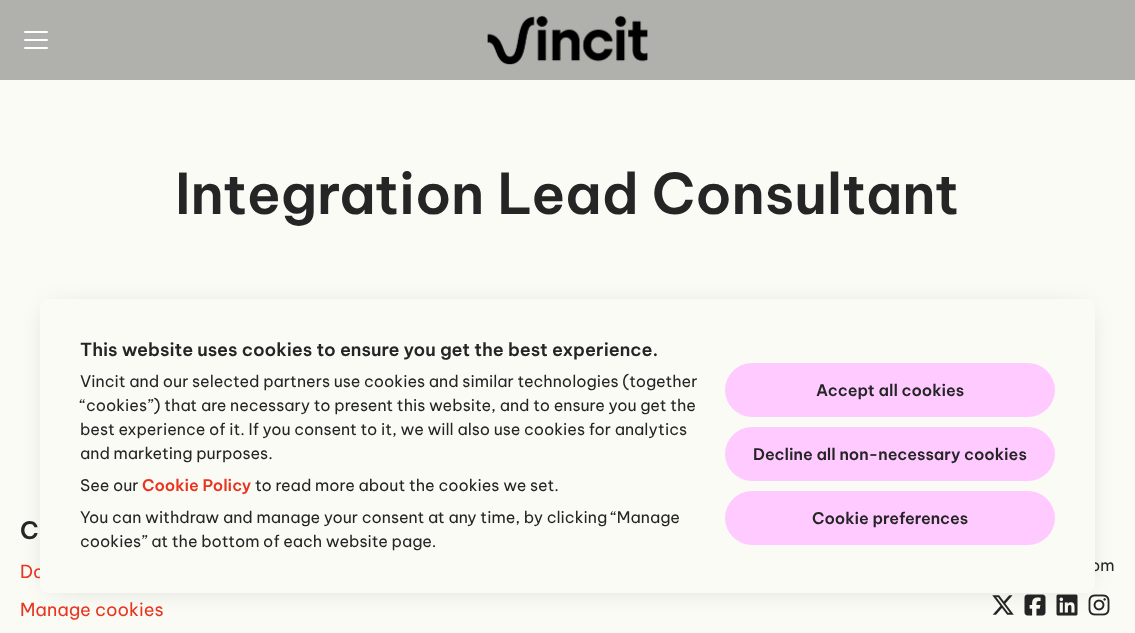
(async () => {
  const canvas = document.querySelector("canvas");
  canvas.width = 1135;
  canvas.height = 633;
  const ctx = canvas.getContext("2d");
  ctx.miterLimit = 4;
  ctx.fontKerning = "normal";
  async function loadImage(src) {
    const img = new Image();
    img.src = src;
    await img.decode();
    return img;
  }

  ctx.fillStyle = "#fbfbf6";
  ctx.fillRect(0, 0, 1135, 633);
  ctx.fillStyle = "#b0b0ac";
  ctx.fillRect(0, 0, 1135, 80);
  ctx.fillStyle = "#ffffff";
  ctx.beginPath();
  ctx.roundRect(24, 31, 24, 2, 1);
  ctx.fill();
  ctx.beginPath();
  ctx.roundRect(24, 39, 24, 2, 1);
  ctx.fill();
  ctx.beginPath();
  ctx.roundRect(24, 47, 24, 2, 1);
  ctx.fill();
  ctx.drawImage(await loadImage("img/1.png"), 487, 15, 161, 50);
  ctx.drawImage(await loadImage("img/2.png"), 992, 595, 22, 20);
  ctx.drawImage(await loadImage("img/3.png"), 1024, 594, 22, 22);
  ctx.drawImage(await loadImage("img/4.png"), 1056, 594, 22, 22);
  ctx.drawImage(await loadImage("img/5.png"), 1088, 594, 22, 22);
  ctx.fillStyle = "rgba(0, 0, 0, 0.18)";
  ctx.filter = "blur(13.5px)";
  ctx.beginPath();
  ctx.rect(50, 311, 1035, 274);
  ctx.fill();
  ctx.filter = "none";
  ctx.font = "600 56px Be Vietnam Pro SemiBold";
  ctx.fillStyle = "#252525";
  ctx.fillText("Integration Lead Consultant", 175, 214);
  ctx.font = "600 24px Be Vietnam Pro SemiBold";
  ctx.fillText("C", 20, 539);
  ctx.font = "18px Be Vietnam Pro";
  ctx.fillStyle = "#e83520";
  ctx.fillText("Da", 20, 578);
  ctx.fillText("Manage cookies", 20, 616);
  ctx.font = "16px Be Vietnam Pro";
  ctx.fillStyle = "#252525";
  ctx.fillText("om", 1090, 571);
  ctx.fillStyle = "#fbfbf6";
  ctx.beginPath();
  ctx.roundRect(40, 299, 1055, 294, 8);
  ctx.fill();
  ctx.font = "600 18px Be Vietnam Pro SemiBold";
  ctx.fillStyle = "#252525";
  ctx.fillText("This website uses cookies to ensure you get the best experience.", 80, 356);
  ctx.font = "16px Be Vietnam Pro";
  for (const [text, x, y] of [
    ["Vincit and our selected partners use cookies and similar technologies (together", 80, 387],
    ["“cookies”) that are necessary to present this website, and to ensure you get the", 80, 411],
    ["best experience of it. If you consent to it, we will also use cookies for analytics", 80, 435],
    ["and marketing purposes.", 80, 459],
    ["See our", 80, 491],
  ]) {
    ctx.fillText(text, x, y);
  }
  ctx.font = "600 16px Be Vietnam Pro SemiBold";
  ctx.fillStyle = "#e83520";
  ctx.fillText("Cookie Policy", 142, 491);
  ctx.font = "16px Be Vietnam Pro";
  ctx.fillStyle = "#252525";
  for (const [text, x, y] of [
    ["to read more about the cookies we set.", 255, 491],
    ["You can withdraw and manage your consent at any time, by clicking “Manage", 80, 523],
    ["cookies” at the bottom of each website page.", 80, 547],
  ]) {
    ctx.fillText(text, x, y);
  }
  ctx.fillStyle = "#ffcaff";
  ctx.beginPath();
  ctx.roundRect(725, 363, 330, 54, 27);
  ctx.fill();
  ctx.font = "600 16px Be Vietnam Pro SemiBold";
  ctx.fillStyle = "#252525";
  ctx.fillText("Accept all cookies", 816, 396);
  ctx.fillStyle = "#ffcaff";
  ctx.beginPath();
  ctx.roundRect(725, 427, 330, 54, 27);
  ctx.fill();
  ctx.fillStyle = "#252525";
  ctx.fillText("Decline all non-necessary cookies", 753, 460);
  ctx.fillStyle = "#ffcaff";
  ctx.beginPath();
  ctx.roundRect(725, 491, 330, 54, 27);
  ctx.fill();
  ctx.fillStyle = "#252525";
  ctx.fillText("Cookie preferences", 812, 524);
})();
